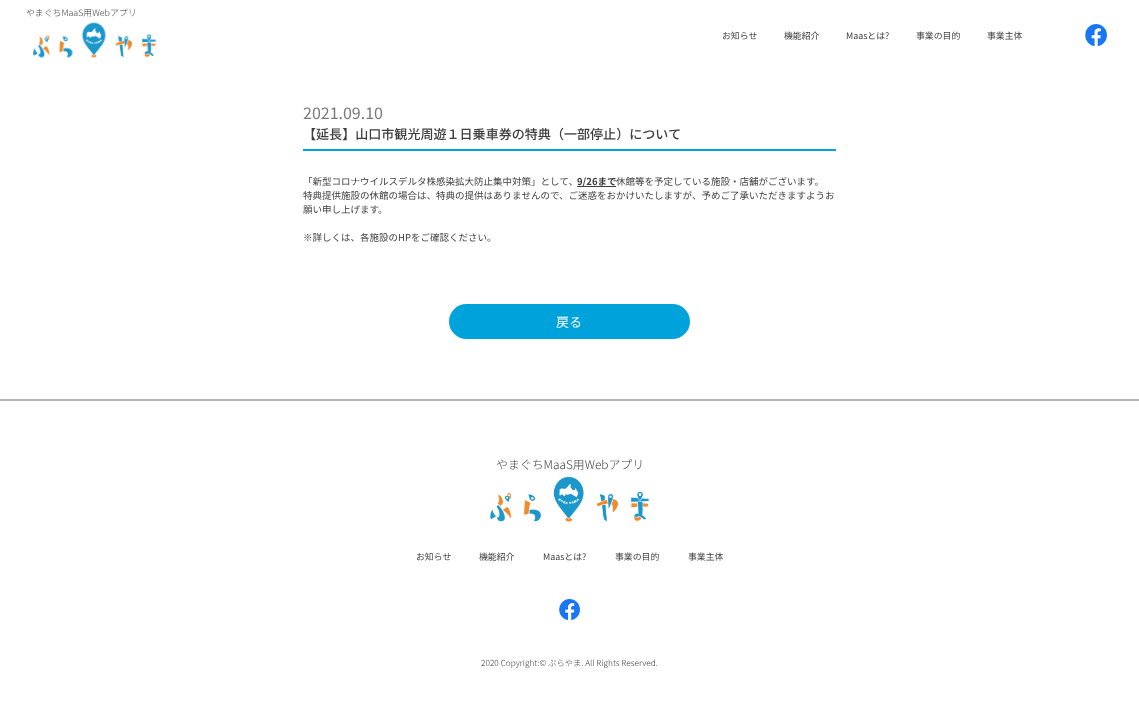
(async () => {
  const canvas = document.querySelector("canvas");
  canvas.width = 1139;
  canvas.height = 705;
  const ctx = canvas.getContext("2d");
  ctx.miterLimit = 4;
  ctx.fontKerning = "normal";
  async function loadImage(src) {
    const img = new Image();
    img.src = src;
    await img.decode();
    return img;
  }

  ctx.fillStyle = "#ffffff";
  ctx.fillRect(0, 0, 1139, 705);
  ctx.drawImage(await loadImage("img/1.png"), 32, 22, 125, 36);
  ctx.drawImage(await loadImage("img/2.png"), 1085, 24, 22, 22);
  ctx.fillStyle = "#00a2dc";
  ctx.fillRect(303, 149, 533, 2);
  ctx.fillStyle = "#3e3e3e";
  ctx.fillRect(577, 186, 39, 1);
  ctx.fillStyle = "#00a2dc";
  ctx.beginPath();
  ctx.roundRect(449, 304, 241, 35, 17.5);
  ctx.fill();
  ctx.fillStyle = "#b5b5b5";
  ctx.fillRect(0, 399, 1139, 2);
  ctx.drawImage(await loadImage("img/3.png"), 490, 476, 159, 46);
  ctx.drawImage(await loadImage("img/4.png"), 559, 599, 21, 21);
  ctx.font = "300 8.9px Noto Sans JP";
  ctx.fillStyle = "#3e3e3e";
  ctx.fillText("やまぐちMaaS用Webアプリ", 26, 16);
  ctx.font = "8.9px Noto Sans JP";
  for (const [text, x, y] of [
    ["お知らせ", 722, 39],
    ["機能紹介", 784, 39],
    ["Maasとは?", 846, 39],
    ["事業の目的", 916, 39],
    ["事業主体", 987, 39],
  ]) {
    ctx.fillText(text, x, y);
  }
  ctx.font = "16px Noto Sans JP";
  ctx.fillStyle = "#7a7a7a";
  ctx.fillText("2021.09.10", 303, 119);
  ctx.font = "500 13.05px Noto Sans JP";
  ctx.fillStyle = "#3e3e3e";
  ctx.fillText("【延長】山口市観光周遊１日乗車券の特典（一部停止）について", 303, 139);
  ctx.font = "9.5px Noto Sans JP";
  ctx.fillText("「新型コロナウイルスデルタ株感染拡大防止集中対策」として、", 303, 185);
  ctx.font = "bold 9.5px Noto Sans JP";
  ctx.fillText("9/26まで", 577, 185);
  ctx.font = "9.5px Noto Sans JP";
  for (const [text, x, y] of [
    ["休館等を予定している施設・店舗がございます。", 616, 185],
    ["特典提供施設の休館の場合は、特典の提供はありませんので、ご迷惑をおかけいたしますが、予めご了承いただきますようお", 303, 199],
    ["願い申し上げます。", 303, 213],
    ["※詳しくは、各施設のHPをご確認ください。", 303, 241],
  ]) {
    ctx.fillText(text, x, y);
  }
  ctx.font = "13.05px Noto Sans JP";
  ctx.fillStyle = "#ffffff";
  ctx.fillText("戻る", 556, 327);
  ctx.font = "300 11.9px Noto Sans JP";
  ctx.fillStyle = "#3e3e3e";
  ctx.fillText("やまぐちMaaS用Webアプリ", 496, 469);
  ctx.font = "8.9px Noto Sans JP";
  for (const [text, x, y] of [
    ["お知らせ", 416, 560],
    ["機能紹介", 479, 560],
    ["Maasとは?", 543, 560],
    ["事業の目的", 615, 560],
    ["事業主体", 688, 560],
  ]) {
    ctx.fillText(text, x, y);
  }
  ctx.font = "300 8.3px Noto Sans JP";
  ctx.fillText("2020 Copyright:© ぶらやま. All Rights Reserved.", 481, 666);
})();
